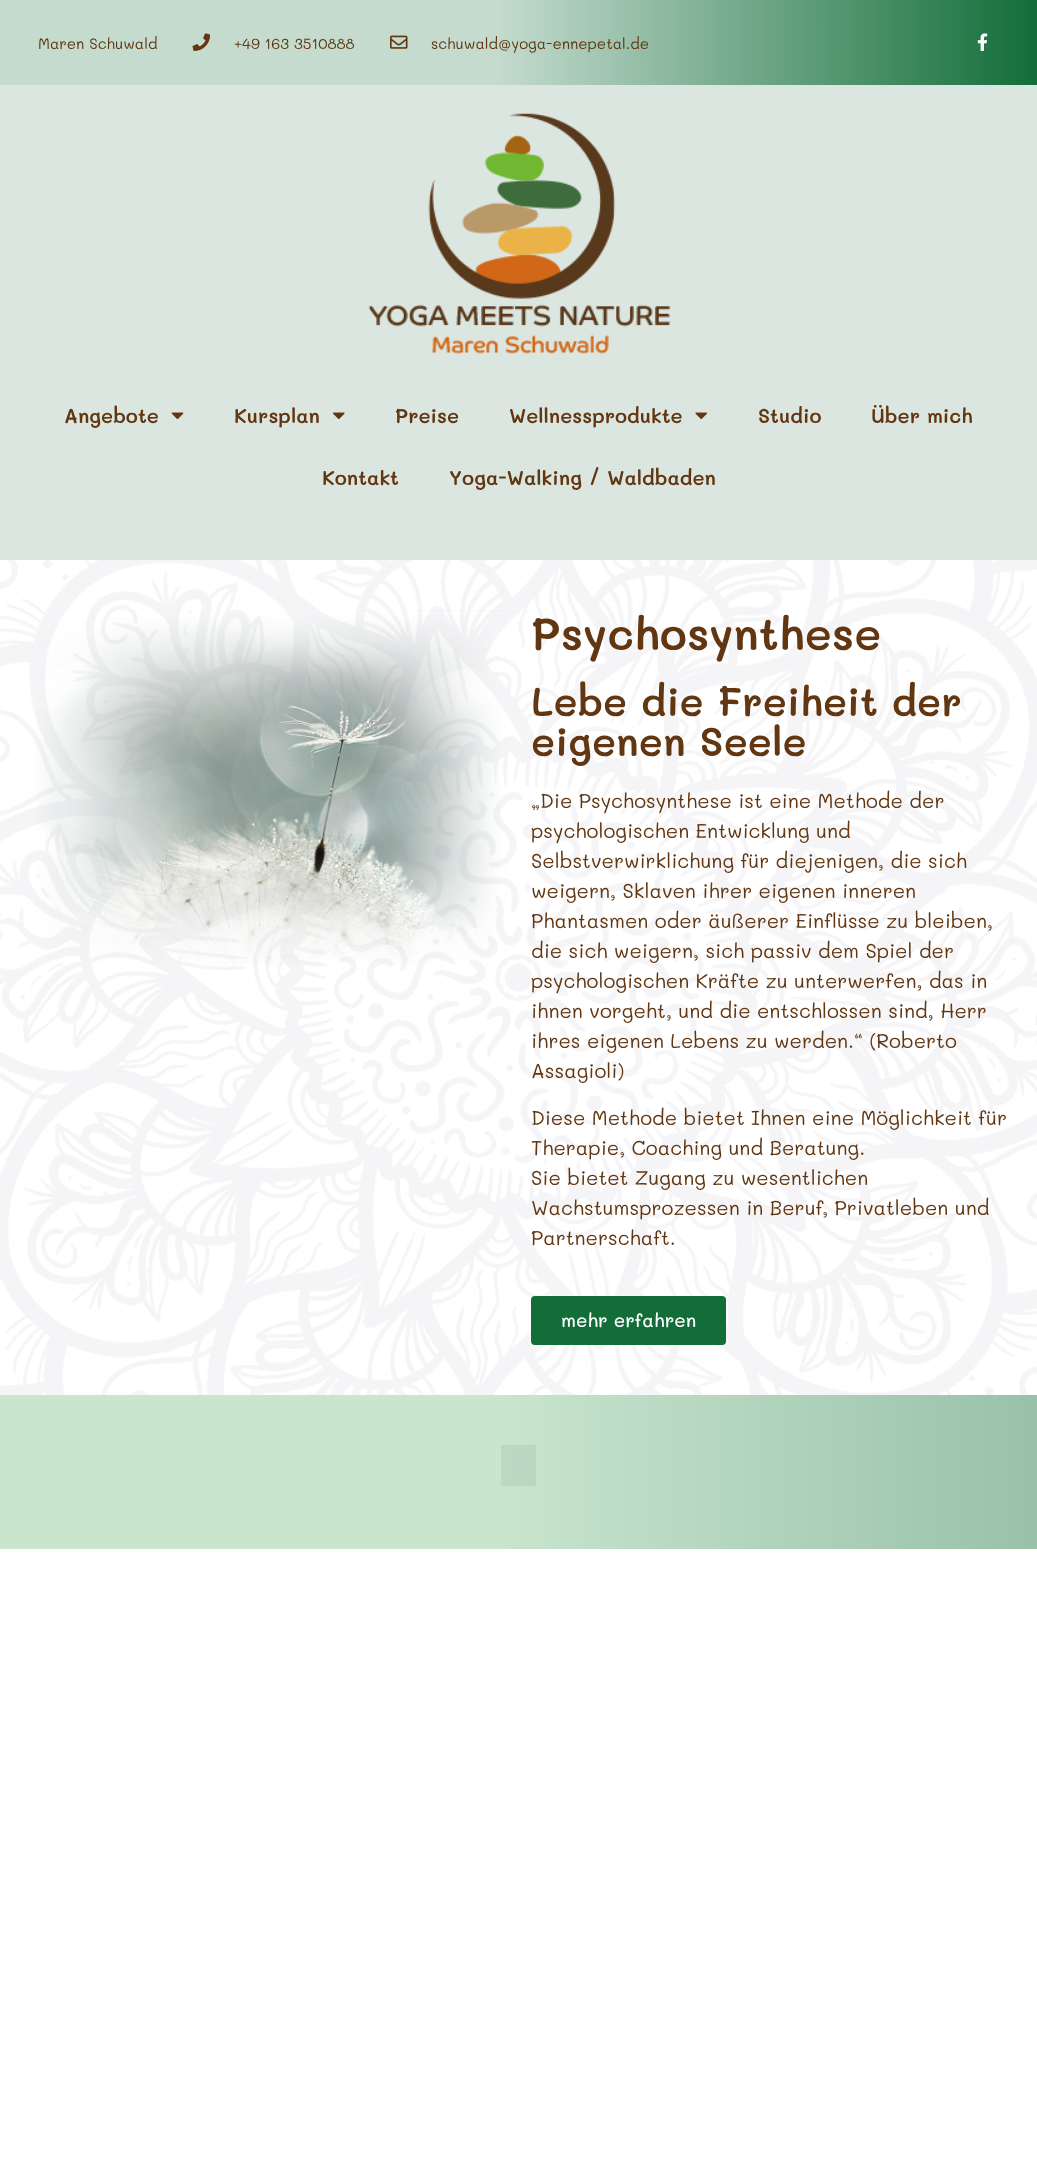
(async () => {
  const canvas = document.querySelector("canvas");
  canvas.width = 1037;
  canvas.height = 2161;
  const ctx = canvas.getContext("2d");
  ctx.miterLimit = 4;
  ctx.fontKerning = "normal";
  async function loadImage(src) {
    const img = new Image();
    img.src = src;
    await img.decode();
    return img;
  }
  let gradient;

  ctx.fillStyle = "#ffffff";
  ctx.fillRect(0, 0, 1037, 2161);
  gradient = ctx.createLinearGradient(0, 43, 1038, 42);
  gradient.addColorStop(0.48, "#c4dbce");
  gradient.addColorStop(1, "#126d39");
  ctx.fillStyle = gradient;
  ctx.fillRect(0, 0, 1037, 85);
  ctx.drawImage(await loadImage("img/1.png"), 192, 33, 18, 18);
  ctx.drawImage(await loadImage("img/2.png"), 390, 35, 18, 14);
  ctx.drawImage(await loadImage("img/3.png"), 977, 33, 11, 18);
  ctx.fillStyle = "#dce6e1";
  ctx.fillRect(0, 85, 1037, 475);
  ctx.drawImage(await loadImage("img/4.png"), 368, 113, 303, 241);
  ctx.fillStyle = "#dfe1de";
  ctx.fillRect(25, 383, 988, 1);
  ctx.fillRect(25, 509, 988, 1);
  ctx.drawImage(await loadImage("img/5.png"), 171, 412, 13, 8);
  ctx.drawImage(await loadImage("img/6.png"), 333, 412, 12, 8);
  ctx.drawImage(await loadImage("img/7.png"), 695, 412, 12, 8);
  ctx.drawImage(await loadImage("img/8.png"), 0, 560, 1037, 835);
  ctx.drawImage(await loadImage("img/9.png"), 36, 610, 470, 355);
  ctx.fillStyle = "#126d39";
  ctx.beginPath();
  ctx.roundRect(531, 1296, 195, 49, 4);
  ctx.fill();
  gradient = ctx.createLinearGradient(0, 1472, 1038, 1472);
  gradient.addColorStop(0.48, "#c9e5ce");
  gradient.addColorStop(1, "#99c1aa");
  ctx.fillStyle = gradient;
  ctx.fillRect(0, 1395, 1037, 154);
  ctx.fillStyle = "rgba(0, 0, 0, 0.05)";
  ctx.fillRect(501, 1445, 35, 41);
  ctx.font = "15px Mali";
  ctx.fillStyle = "#613611";
  for (const [text, x, y] of [
    ["Maren Schuwald", 38, 49],
    ["+49 163 3510888", 234, 49],
    ["schuwald@yoga-ennepetal.de", 431, 49],
  ]) {
    ctx.fillText(text, x, y);
  }
  ctx.font = "600 20px Mali";
  for (const [text, x, y] of [
    ["Angebote", 64, 423],
    ["Kursplan", 234, 423],
    ["Preise", 395, 423],
    ["Wellnessprodukte", 509, 423],
    ["Studio", 758, 423],
    ["Über mich", 871, 423],
    ["Kontakt", 322, 485],
    ["Yoga-Walking / Waldbaden", 449, 485],
  ]) {
    ctx.fillText(text, x, y);
  }
  ctx.font = "600 45px Mali";
  ctx.fillText("Psychosynthese", 531, 650);
  ctx.font = "600 40px Mali";
  ctx.fillText("Lebe die Freiheit der", 531, 716);
  ctx.fillText("eigenen Seele", 531, 756);
  ctx.font = "20px Mali";
  for (const [text, x, y] of [
    ["„Die Psychosynthese ist eine Methode der", 531, 808],
    ["psychologischen Entwicklung und", 531, 838],
    ["Selbstverwirklichung für diejenigen, die sich", 531, 868],
    ["weigern, Sklaven ihrer eigenen inneren", 531, 898],
    ["Phantasmen oder äußerer Einflüsse zu bleiben,", 531, 928],
    ["die sich weigern, sich passiv dem Spiel der", 531, 958],
    ["psychologischen Kräfte zu unterwerfen, das in", 531, 988],
    ["ihnen vorgeht, und die entschlossen sind, Herr", 531, 1018],
    ["ihres eigenen Lebens zu werden.“ (Roberto", 531, 1048],
    ["Assagioli)", 531, 1078],
    ["Diese Methode bietet Ihnen eine Möglichkeit für", 531, 1125],
    ["Therapie, Coaching und Beratung.", 531, 1155],
    ["Sie bietet Zugang zu wesentlichen", 531, 1185],
    ["Wachstumsprozessen in Beruf, Privatleben und", 531, 1215],
    ["Partnerschaft.", 531, 1245],
  ]) {
    ctx.fillText(text, x, y);
  }
  ctx.font = "500 18.75px Mali";
  ctx.fillStyle = "#ffffff";
  ctx.fillText("mehr erfahren", 561, 1327);
})();
